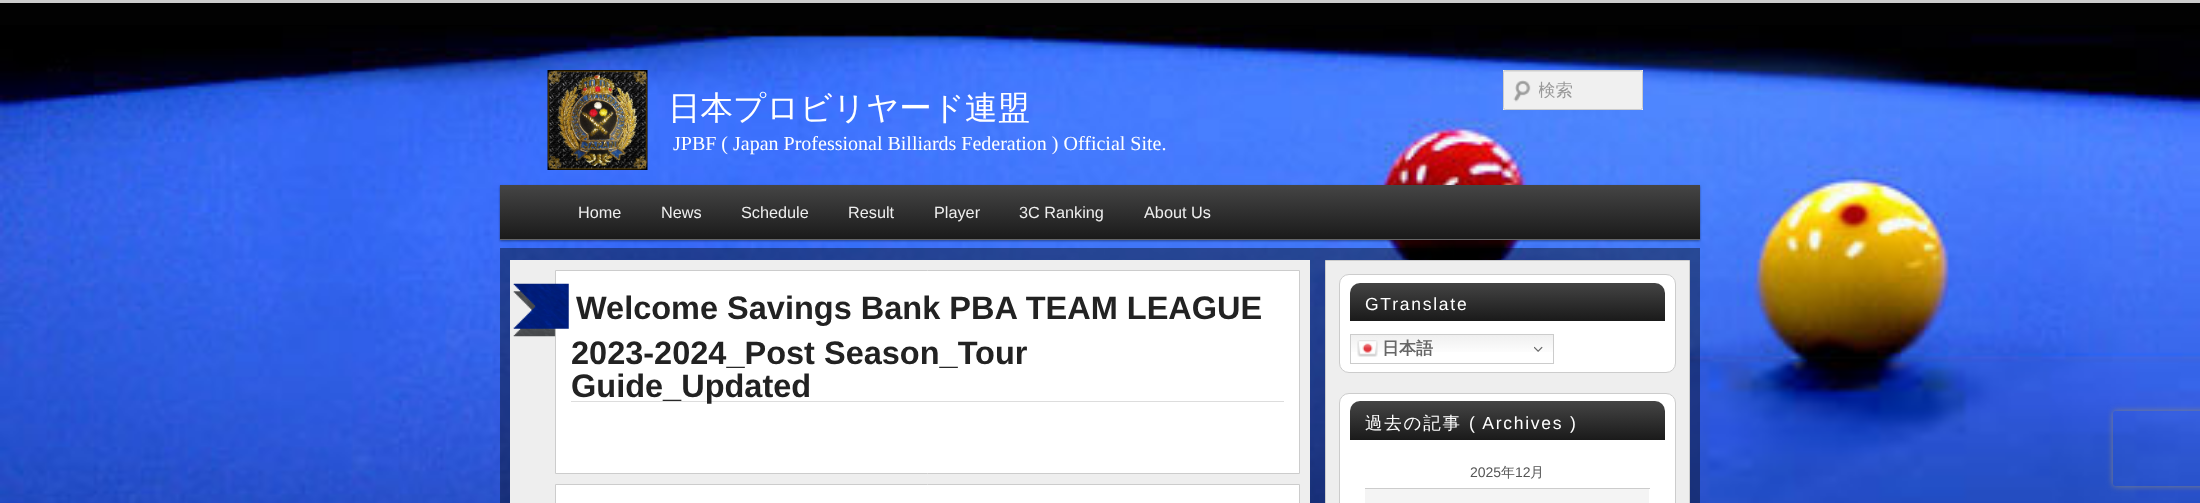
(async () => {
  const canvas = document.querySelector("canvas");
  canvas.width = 2200;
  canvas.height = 503;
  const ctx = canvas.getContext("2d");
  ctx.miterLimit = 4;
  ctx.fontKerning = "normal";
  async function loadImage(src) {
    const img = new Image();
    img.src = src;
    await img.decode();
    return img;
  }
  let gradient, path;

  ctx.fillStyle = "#020202";
  ctx.fillRect(0, 0, 2200, 503);
  ctx.drawImage(await loadImage("img/1.png"), 0, 25, 2200, 478);
  ctx.fillStyle = "#cccccc";
  ctx.fillRect(0, 0, 2200, 3);
  ctx.drawImage(await loadImage("img/2.png"), 547, 70, 101, 100);
  ctx.fillStyle = "#f0f0f0";
  ctx.fillRect(1503, 70, 140, 40);
  ctx.drawImage(await loadImage("img/3.png"), 1513, 80, 18, 22);
  ctx.fillStyle = "#dedede";
  path = new Path2D("M1505 72H1640C1641 72 1641 73 1641 74C1641 73 1641 72 1640 71H1505C1504 71 1504 73 1504 74C1504 73 1504 72 1505 72Z");
  ctx.fill(path);
  ctx.beginPath();
  ctx.roundRect(1503.5, 70.5, 139, 39, 2);
  ctx.strokeStyle = "#cccccc";
  ctx.stroke();
  ctx.fillStyle = "rgba(0, 0, 0, 0.4)";
  ctx.filter = "blur(1px)";
  ctx.beginPath();
  ctx.rect(500, 186, 1200, 55);
  ctx.fill();
  ctx.filter = "none";
  gradient = ctx.createLinearGradient(1100, 185, 1100, 239);
  gradient.addColorStop(0, "#454545");
  gradient.addColorStop(1, "#1a1a1a");
  ctx.fillStyle = gradient;
  ctx.fillRect(500, 185, 1200, 54);
  for (const [x, y, w, h, color] of [
    [500, 239, 1200, 1, "#666666"],
    [500, 248, 1200, 255, "rgba(0, 0, 0, 0.4)"],
    [510, 260, 800, 243, "#eeeeee"],
  ]) {
    ctx.fillStyle = color;
    ctx.fillRect(x, y, w, h);
  }
  ctx.fillStyle = "#ffffff";
  ctx.beginPath();
  ctx.rect(555.5, 270.5, 744, 203);
  ctx.fill();
  ctx.stroke();
  ctx.fillStyle = "#dddddd";
  ctx.fillRect(571, 401, 713, 1);
  ctx.drawImage(await loadImage("img/4.png"), 513, 283, 56, 54);
  ctx.fillStyle = "#ffffff";
  ctx.beginPath();
  ctx.rect(555.5, 484.5, 744, 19);
  ctx.fill();
  ctx.stroke();
  ctx.fillStyle = "#eeeeee";
  ctx.beginPath();
  ctx.rect(1325.5, 260.5, 364, 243);
  ctx.fill();
  ctx.stroke();
  ctx.fillStyle = "#ffffff";
  ctx.beginPath();
  ctx.roundRect(1339.5, 274.5, 336, 98, 9.5);
  ctx.fill();
  ctx.stroke();
  gradient = ctx.createLinearGradient(1508, 282, 1508, 321);
  gradient.addColorStop(0, "#454545");
  gradient.addColorStop(1, "#1a1a1a");
  ctx.fillStyle = gradient;
  ctx.beginPath();
  ctx.roundRect(1350, 283, 315, 38, [10, 10, 0, 0]);
  ctx.fill();
  gradient = ctx.createLinearGradient(1452, 334, 1452, 364);
  gradient.addColorStop(0, "#efefef");
  gradient.addColorStop(0.7, "#ffffff");
  ctx.fillStyle = gradient;
  ctx.fillRect(1351, 335, 202, 17);
  ctx.strokeRect(1350.5, 334.5, 203, 29);
  ctx.drawImage(await loadImage("img/5.png"), 1357, 340, 21, 17);
  ctx.drawImage(await loadImage("img/6.png"), 1534, 346, 9, 6);
  ctx.fillStyle = "#ffffff";
  ctx.beginPath();
  ctx.roundRect(1339.5, 393.5, 336, 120, 9.5);
  ctx.fill();
  ctx.stroke();
  gradient = ctx.createLinearGradient(1508, 401, 1508, 440);
  gradient.addColorStop(0, "#454545");
  gradient.addColorStop(1, "#1a1a1a");
  ctx.fillStyle = gradient;
  ctx.beginPath();
  ctx.roundRect(1350, 401, 315, 39, [10, 10, 0, 0]);
  ctx.fill();
  ctx.fillStyle = "#cccccc";
  ctx.fillRect(1365, 488, 285, 1);
  ctx.fillStyle = "#f4f4f4";
  ctx.fillRect(1365, 489, 284, 14);
  ctx.save();
  path = new Path2D("M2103 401H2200V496H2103ZM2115.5 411H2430.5C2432 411 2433 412 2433 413.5V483.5C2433 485 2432 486 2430.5 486H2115.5C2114 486 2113 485 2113 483.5V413.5C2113 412 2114 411 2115.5 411Z");
  ctx.clip(path, "evenodd");
  ctx.fillStyle = "#808080";
  ctx.filter = "blur(3px)";
  ctx.beginPath();
  ctx.roundRect(2113, 411, 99, 75, 2.5);
  ctx.fill();
  ctx.filter = "none";
  ctx.restore();
  ctx.font = "500 32.5px WenQuanYi Zen Hei";
  ctx.fillStyle = "#ffffff";
  ctx.fillText("日本プロビリヤード連盟", 668, 119);
  ctx.font = "20px Liberation Serif";
  ctx.fillText("JPBF ( Japan Professional Billiards Federation ) Official Site.", 673, 150);
  ctx.save();
  ctx.beginPath();
  ctx.rect(1539, 80, 90, 23);
  ctx.clip();
  ctx.font = "500 17.5px WenQuanYi Zen Hei";
  ctx.fillStyle = "#999999";
  ctx.fillText("検索", 1538, 96);
  ctx.restore();
  ctx.font = "16.25px Liberation Sans";
  ctx.fillStyle = "#eeeeee";
  for (const [text, x, y] of [
    ["Home", 578, 218],
    ["News", 661, 218],
    ["Schedule", 741, 218],
    ["Result", 848, 218],
    ["Player", 934, 218],
    ["3C Ranking", 1019, 218],
    ["About Us", 1144, 218],
  ]) {
    ctx.fillText(text, x, y);
  }
  ctx.font = "bold 32.5px Liberation Sans";
  ctx.fillStyle = "#222222";
  for (const [text, x, y] of [
    ["Welcome Savings Bank PBA TEAM LEAGUE", 576, 319],
    ["2023-2024_Post Season_Tour", 571, 364],
    ["Guide_Updated", 571, 397],
  ]) {
    ctx.fillText(text, x, y);
  }
  ctx.letterSpacing = "1.75px";
  ctx.font = "17.5px Liberation Sans";
  ctx.fillStyle = "#ffffff";
  ctx.fillText("GTranslate", 1365, 310);
  ctx.letterSpacing = "0px";
  ctx.font = "bold 17px WenQuanYi Zen Hei";
  ctx.fillStyle = "#666666";
  ctx.fillText("日本語", 1382, 354);
  ctx.letterSpacing = "1.75px";
  ctx.font = "500 17.5px WenQuanYi Zen Hei";
  ctx.fillStyle = "#ffffff";
  ctx.fillText("過去の記事", 1365, 429);
  ctx.font = "17.5px Liberation Sans";
  ctx.fillText("( Archives )", 1469, 429);
  ctx.letterSpacing = "0px";
  ctx.font = "14px Liberation Sans";
  ctx.fillStyle = "#555555";
  ctx.fillText("2025", 1470, 477);
  ctx.font = "500 14px WenQuanYi Zen Hei";
  ctx.fillText("年", 1501, 477);
  ctx.font = "14px Liberation Sans";
  ctx.fillText("12", 1515, 477);
  ctx.font = "500 14px WenQuanYi Zen Hei";
  ctx.fillText("月", 1530, 477);
})();
